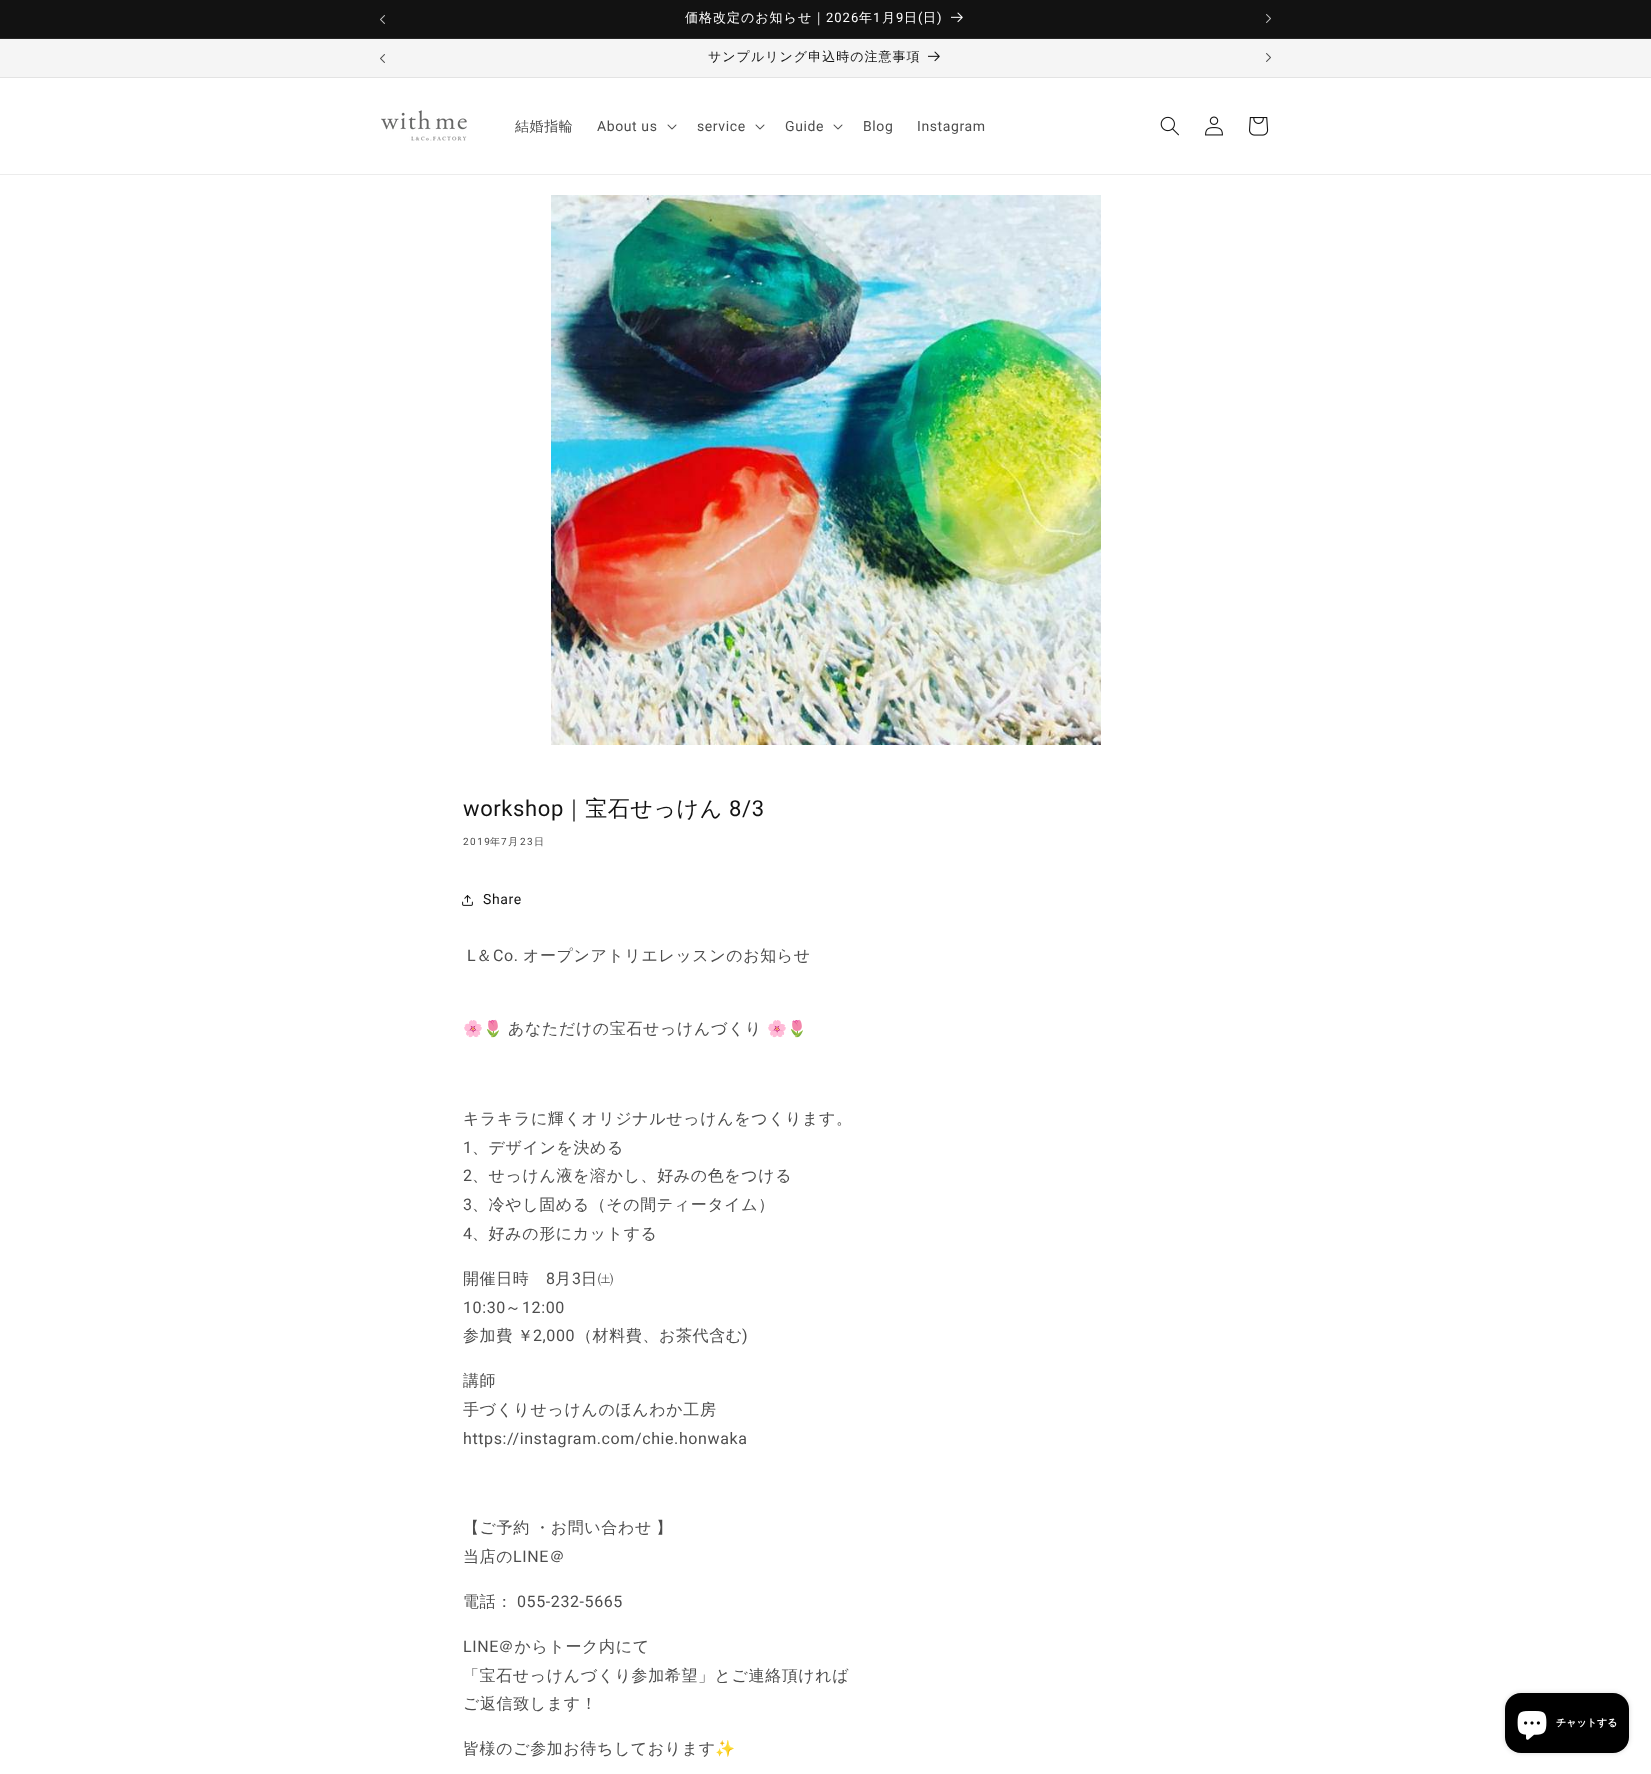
(async () => {
  const canvas = document.querySelector("canvas");
  canvas.width = 1651;
  canvas.height = 1774;
  const ctx = canvas.getContext("2d");
  ctx.miterLimit = 4;
  ctx.fontKerning = "normal";
  async function loadImage(src) {
    const img = new Image();
    img.src = src;
    await img.decode();
    return img;
  }

  ctx.fillStyle = "#ffffff";
  ctx.fillRect(0, 0, 1651, 1774);
  ctx.fillStyle = "#121212";
  ctx.fillRect(0, 0, 1651, 38);
  ctx.fillStyle = "#252525";
  ctx.fillRect(0, 38, 1651, 1);
  ctx.drawImage(await loadImage("img/1.png"), 380, 15, 5, 9);
  ctx.drawImage(await loadImage("img/2.png"), 951, 12, 12, 11);
  ctx.drawImage(await loadImage("img/3.png"), 1266, 14, 5, 9);
  ctx.fillStyle = "#f5f5f5";
  ctx.fillRect(0, 39, 1651, 38);
  ctx.fillStyle = "#e3e3e3";
  ctx.fillRect(0, 77, 1651, 1);
  ctx.drawImage(await loadImage("img/4.png"), 380, 54, 5, 9);
  ctx.drawImage(await loadImage("img/5.png"), 928, 51, 12, 11);
  ctx.drawImage(await loadImage("img/6.png"), 1266, 53, 5, 9);
  ctx.fillStyle = "#ececec";
  ctx.fillRect(0, 174, 1651, 1);
  ctx.drawImage(await loadImage("img/7.png"), 381, 110, 86, 31);
  ctx.drawImage(await loadImage("img/8.png"), 667, 124, 10, 6);
  ctx.drawImage(await loadImage("img/8.png"), 755, 124, 10, 6);
  ctx.drawImage(await loadImage("img/8.png"), 833, 124, 10, 6);
  ctx.drawImage(await loadImage("img/9.png"), 1160, 116, 19, 20);
  ctx.drawImage(await loadImage("img/10.png"), 1205, 116, 18, 20);
  ctx.drawImage(await loadImage("img/11.png"), 1249, 117, 20, 19);
  ctx.drawImage(await loadImage("img/12.png"), 551, 195, 550, 550);
  ctx.drawImage(await loadImage("img/13.png"), 462, 895, 11, 11);
  ctx.fillStyle = "rgba(0, 0, 0, 0.15)";
  ctx.filter = "blur(2.5px)";
  ctx.beginPath();
  ctx.roundRect(1505, 1693, 124, 60, 16);
  ctx.fill();
  ctx.filter = "none";
  ctx.fillStyle = "#000000";
  ctx.beginPath();
  ctx.roundRect(1505, 1693, 124, 60, 16);
  ctx.fill();
  ctx.drawImage(await loadImage("img/14.png"), 1517, 1711, 30, 29);
  ctx.letterSpacing = "1px";
  ctx.font = "500 13px WenQuanYi Zen Hei";
  ctx.fillStyle = "#ffffff";
  ctx.fillText("価格改定のお知らせ｜", 685, 22);
  ctx.font = "13px Roboto";
  ctx.fillText("2026", 826, 22);
  ctx.font = "500 13px WenQuanYi Zen Hei";
  ctx.fillText("年", 859, 22);
  ctx.font = "13px Roboto";
  ctx.fillText("1", 873, 22);
  ctx.font = "500 13px WenQuanYi Zen Hei";
  ctx.fillText("月", 882, 22);
  ctx.font = "13px Roboto";
  ctx.fillText("9", 896, 22);
  ctx.font = "500 13px WenQuanYi Zen Hei";
  ctx.fillText("日", 904, 22);
  ctx.font = "13px Roboto";
  ctx.fillText("(", 918, 22);
  ctx.font = "500 13px WenQuanYi Zen Hei";
  ctx.fillText("日", 923, 22);
  ctx.font = "13px Roboto";
  ctx.fillText(")", 937, 22);
  ctx.font = "500 13px WenQuanYi Zen Hei";
  ctx.fillStyle = "#121212";
  ctx.fillText("サンプルリング申込時の注意事項", 708, 61);
  ctx.letterSpacing = "0.6px";
  ctx.font = "500 14px WenQuanYi Zen Hei";
  ctx.fillStyle = "#4d4d4d";
  ctx.fillText("結婚指輪", 515, 131);
  ctx.font = "14px Roboto";
  for (const [text, x, y] of [
    ["About us", 597, 131],
    ["service", 697, 131],
    ["Guide", 785, 131],
    ["Blog", 863, 131],
    ["Instagram", 917, 131],
  ]) {
    ctx.fillText(text, x, y);
  }
  ctx.font = "22px Roboto";
  ctx.fillStyle = "#121212";
  ctx.fillText("workshop", 463, 816);
  ctx.font = "500 22px WenQuanYi Zen Hei";
  ctx.fillText("｜宝石せっけん", 563, 816);
  ctx.font = "22px Roboto";
  ctx.fillText("8/3", 729, 816);
  ctx.letterSpacing = "1.5px";
  ctx.font = "10px Roboto";
  ctx.fillStyle = "#4d4d4d";
  ctx.fillText("2019", 463, 845);
  ctx.font = "500 10px WenQuanYi Zen Hei";
  ctx.fillText("年", 490, 845);
  ctx.font = "10px Roboto";
  ctx.fillText("7", 501, 845);
  ctx.font = "500 10px WenQuanYi Zen Hei";
  ctx.fillText("月", 508, 845);
  ctx.font = "10px Roboto";
  ctx.fillText("23", 520, 845);
  ctx.font = "500 10px WenQuanYi Zen Hei";
  ctx.fillText("日", 534, 845);
  ctx.letterSpacing = "0.6px";
  ctx.font = "14px Roboto";
  ctx.fillStyle = "#121212";
  ctx.fillText("Share", 483, 904);
  ctx.font = "16px Roboto";
  ctx.fillStyle = "#4d4d4d";
  ctx.fillText("L", 467, 961);
  ctx.font = "500 16px WenQuanYi Zen Hei";
  ctx.fillText("＆", 476, 961);
  ctx.font = "16px Roboto";
  ctx.fillText("Co.", 493, 961);
  ctx.font = "500 16px WenQuanYi Zen Hei";
  ctx.fillText("オープンアトリエレッスンのお知らせ", 523, 961);
  ctx.font = "16px Noto Color Emoji";
  ctx.fillText("🌸🌷", 463, 1034);
  ctx.font = "500 16px WenQuanYi Zen Hei";
  ctx.fillText("あなただけの宝石せっけんづくり", 508, 1034);
  ctx.font = "16px Noto Color Emoji";
  ctx.fillText("🌸🌷", 767, 1034);
  ctx.font = "500 16px WenQuanYi Zen Hei";
  ctx.fillText("キラキラに輝くオリジナルせっけんをつくります。", 463, 1124);
  ctx.font = "16px Roboto";
  ctx.fillText("1", 463, 1153);
  ctx.font = "500 16px WenQuanYi Zen Hei";
  ctx.fillText("、デザインを決める", 472, 1153);
  ctx.font = "16px Roboto";
  ctx.fillText("2", 463, 1181);
  ctx.font = "500 16px WenQuanYi Zen Hei";
  ctx.fillText("、せっけん液を溶かし、好みの色をつける", 472, 1181);
  ctx.font = "16px Roboto";
  ctx.fillText("3", 463, 1210);
  ctx.font = "500 16px WenQuanYi Zen Hei";
  ctx.fillText("、冷やし固める（その間ティータイム）", 472, 1210);
  ctx.font = "16px Roboto";
  ctx.fillText("4", 463, 1239);
  ctx.font = "500 16px WenQuanYi Zen Hei";
  ctx.fillText("、好みの形にカットする", 472, 1239);
  ctx.fillText("開催日時", 463, 1284);
  ctx.font = "16px Roboto";
  ctx.fillText("8", 546, 1284);
  ctx.font = "500 16px WenQuanYi Zen Hei";
  ctx.fillText("月", 555, 1284);
  ctx.font = "16px Roboto";
  ctx.fillText("3", 572, 1284);
  ctx.font = "500 16px WenQuanYi Zen Hei";
  ctx.fillText("日㈯", 581, 1284);
  ctx.font = "16px Roboto";
  ctx.fillText("10:30", 463, 1313);
  ctx.font = "500 16px WenQuanYi Zen Hei";
  ctx.fillText("～", 505, 1313);
  ctx.font = "16px Roboto";
  ctx.fillText("12:00", 522, 1313);
  ctx.wordSpacing = "-1px";
  ctx.font = "500 16px WenQuanYi Zen Hei";
  ctx.fillText("参加費 ￥", 463, 1341);
  ctx.wordSpacing = "0px";
  ctx.font = "16px Roboto";
  ctx.fillText("2,000", 533, 1341);
  ctx.font = "500 16px WenQuanYi Zen Hei";
  ctx.fillText("（材料費、お茶代含む", 576, 1341);
  ctx.font = "16px Roboto";
  ctx.fillText(")", 742, 1341);
  ctx.font = "500 16px WenQuanYi Zen Hei";
  ctx.fillText("講師", 463, 1386);
  ctx.fillText("手づくりせっけんのほんわか工房", 463, 1415);
  ctx.font = "16px Roboto";
  ctx.fillText("https://instagram.com/chie.honwaka", 463, 1444);
  ctx.wordSpacing = "-1px";
  ctx.font = "500 16px WenQuanYi Zen Hei";
  ctx.fillText("【ご予約 ・お問い合わせ 】", 463, 1533);
  ctx.wordSpacing = "0px";
  ctx.fillText("当店の", 463, 1562);
  ctx.font = "16px Roboto";
  ctx.fillText("LINE", 513, 1562);
  ctx.font = "500 16px WenQuanYi Zen Hei";
  ctx.fillText("＠", 549, 1562);
  ctx.fillText("電話：", 463, 1607);
  ctx.font = "16px Roboto";
  ctx.fillText("055-232-5665", 517, 1607);
  ctx.fillText("LINE", 463, 1652);
  ctx.font = "500 16px WenQuanYi Zen Hei";
  for (const [text, x, y] of [
    ["＠からトーク内にて", 498, 1652],
    ["「宝石せっけんづくり参加希望」とご連絡頂ければ", 463, 1681],
    ["ご返信致します！", 463, 1709],
    ["皆様のご参加お待ちしております", 463, 1754],
  ]) {
    ctx.fillText(text, x, y);
  }
  ctx.font = "16px Noto Color Emoji";
  ctx.fillText("✨", 715, 1754);
  ctx.letterSpacing = "0px";
  ctx.font = "bold 10px WenQuanYi Zen Hei";
  ctx.fillStyle = "#ffffff";
  ctx.fillText("チャットする", 1556, 1726);
})();
